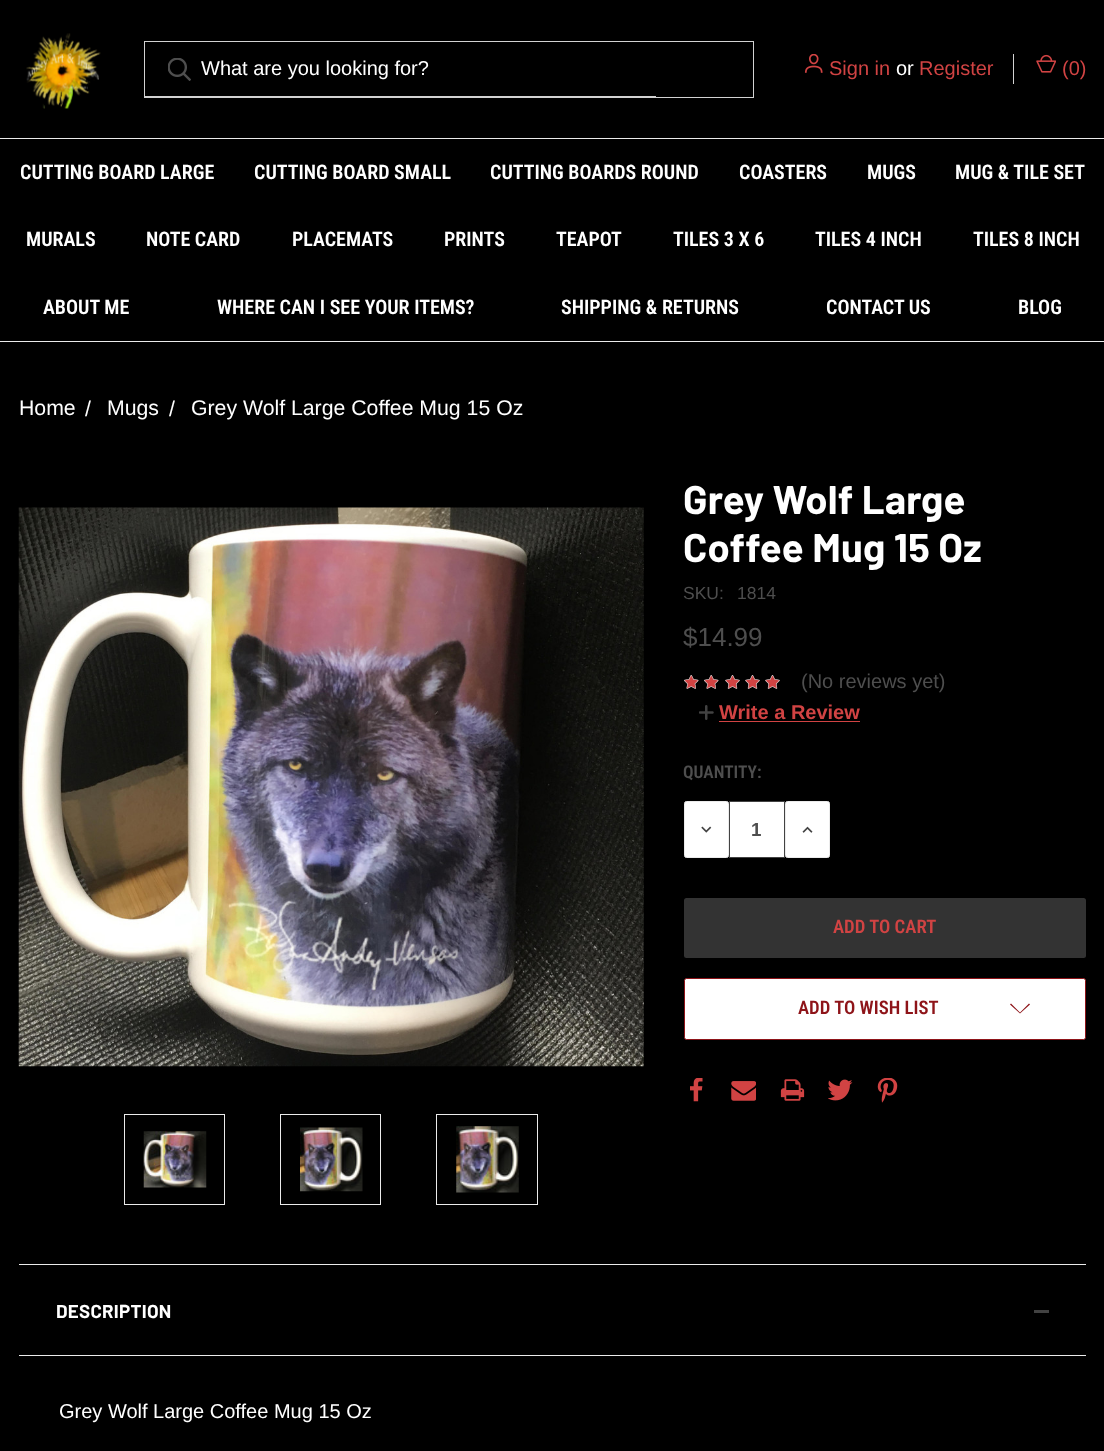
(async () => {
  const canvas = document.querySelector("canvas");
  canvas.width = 1104;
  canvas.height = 1451;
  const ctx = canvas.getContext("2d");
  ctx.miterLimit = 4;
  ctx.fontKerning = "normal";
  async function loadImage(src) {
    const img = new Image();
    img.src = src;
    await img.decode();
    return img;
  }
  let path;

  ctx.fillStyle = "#000000";
  ctx.fillRect(0, 0, 1104, 1451);
  ctx.drawImage(await loadImage("img/1.png"), 26, 33, 75, 76);
  ctx.strokeStyle = "#d2d2d2";
  ctx.strokeRect(144.5, 41.5, 609, 56);
  ctx.drawImage(await loadImage("img/2.png"), 168, 58, 23, 23);
  ctx.fillStyle = "#d2d2d2";
  ctx.fillRect(144, 96, 512, 1);
  ctx.drawImage(await loadImage("img/3.png"), 804, 54, 19, 19);
  ctx.fillRect(1013, 54, 1, 30);
  ctx.drawImage(await loadImage("img/4.png"), 1036, 54, 20, 19);
  ctx.fillStyle = "#ebebeb";
  ctx.fillRect(0, 138, 1104, 1);
  ctx.fillRect(0, 341, 1104, 1);
  ctx.drawImage(await loadImage("img/5.png"), 18, 507, 626, 560);
  ctx.strokeStyle = "#ebebeb";
  ctx.strokeRect(124.5, 1114.5, 100, 90);
  ctx.drawImage(await loadImage("img/6.png"), 143, 1131, 64, 57);
  ctx.strokeRect(280.5, 1114.5, 100, 90);
  ctx.drawImage(await loadImage("img/7.png"), 300, 1127, 63, 65);
  ctx.strokeRect(436.5, 1114.5, 101, 90);
  ctx.drawImage(await loadImage("img/8.png"), 456, 1126, 63, 67);
  ctx.drawImage(await loadImage("img/9.png"), 684, 675, 15, 14);
  ctx.drawImage(await loadImage("img/9.png"), 704, 675, 15, 14);
  ctx.drawImage(await loadImage("img/10.png"), 725, 675, 15, 14);
  ctx.drawImage(await loadImage("img/10.png"), 745, 675, 15, 14);
  ctx.drawImage(await loadImage("img/10.png"), 765, 675, 15, 14);
  ctx.drawImage(await loadImage("img/11.png"), 699, 705, 15, 15);
  ctx.fillStyle = "#d14343";
  ctx.fillRect(719, 721, 141, 1);
  ctx.fillStyle = "#ffffff";
  ctx.beginPath();
  ctx.roundRect(684.5, 801.5, 44, 56, 2);
  ctx.fill();
  ctx.stroke();
  ctx.drawImage(await loadImage("img/12.png"), 701, 826, 11, 7);
  ctx.beginPath();
  ctx.rect(729.5, 801.5, 55, 56);
  ctx.fill();
  ctx.strokeStyle = "#424242";
  ctx.stroke();
  ctx.beginPath();
  ctx.roundRect(785.5, 801.5, 44, 56, 2);
  ctx.fill();
  ctx.strokeStyle = "#ebebeb";
  ctx.stroke();
  ctx.drawImage(await loadImage("img/13.png"), 802, 826, 11, 7);
  ctx.fillStyle = "#333333";
  ctx.beginPath();
  ctx.roundRect(684, 898, 402, 60, 2.5);
  ctx.fill();
  ctx.fillStyle = "#ffffff";
  ctx.beginPath();
  ctx.roundRect(684.5, 978.5, 401, 61, 2);
  ctx.fill();
  ctx.strokeStyle = "#8e1419";
  ctx.stroke();
  ctx.fillStyle = "#8e1419";
  path = new Path2D("M1020 1012.5L1029 1003.5L1030 1004.5L1020 1013.5L1010 1004.5L1011 1003.5Z");
  ctx.fill(path, "evenodd");
  ctx.drawImage(await loadImage("img/14.png"), 690, 1078, 13, 24);
  ctx.drawImage(await loadImage("img/15.png"), 731, 1081, 25, 20);
  ctx.drawImage(await loadImage("img/16.png"), 780, 1079, 25, 22);
  ctx.drawImage(await loadImage("img/17.png"), 828, 1079, 25, 22);
  ctx.drawImage(await loadImage("img/18.png"), 877, 1078, 21, 25);
  for (const [x, y, w, h, color] of [
    [19, 1264, 1067, 1, "#ebebeb"],
    [19, 1355, 1067, 1, "#ebebeb"],
    [1034, 1310, 15, 3, "#424242"],
  ]) {
    ctx.fillStyle = color;
    ctx.fillRect(x, y, w, h);
  }
  ctx.font = "20px Liberation Sans";
  ctx.fillStyle = "#ffffff";
  ctx.fillText("What are you looking for?", 201, 75);
  ctx.fillStyle = "#d14343";
  ctx.fillText("Sign in", 829, 75);
  ctx.fillStyle = "#ffffff";
  ctx.fillText("or", 896, 75);
  ctx.fillStyle = "#d14343";
  ctx.fillText("Register", 919, 75);
  ctx.fillText("(0)", 1062, 75);
  ctx.font = "600 20px Roboto Condensed";
  ctx.fillStyle = "#ffffff";
  for (const [text, x, y] of [
    ["CUTTING BOARD LARGE", 20, 179],
    ["CUTTING BOARD SMALL", 254, 179],
    ["CUTTING BOARDS ROUND", 490, 179],
    ["COASTERS", 739, 179],
    ["MUGS", 867, 179],
    ["MUG & TILE SET", 955, 179],
    ["MURALS", 26, 246],
    ["NOTE CARD", 146, 246],
    ["PLACEMATS", 292, 246],
    ["PRINTS", 444, 246],
    ["TEAPOT", 556, 246],
    ["TILES 3 X 6", 673, 246],
    ["TILES 4 INCH", 815, 246],
    ["TILES 8 INCH", 973, 246],
    ["ABOUT ME", 43, 314],
    ["WHERE CAN I SEE YOUR ITEMS?", 217, 314],
    ["SHIPPING & RETURNS", 561, 314],
    ["CONTACT US", 826, 314],
    ["BLOG", 1018, 314],
  ]) {
    ctx.fillText(text, x, y);
  }
  ctx.font = "21.25px Liberation Sans";
  for (const [text, x, y] of [
    ["Home", 19, 415],
    ["/", 85, 416],
    ["Mugs", 107, 415],
    ["/", 169, 416],
    ["Grey Wolf Large Coffee Mug 15 Oz", 191, 415],
  ]) {
    ctx.fillText(text, x, y);
  }
  ctx.letterSpacing = "0.25px";
  ctx.font = "bold 40px Barlow";
  ctx.fillText("Grey Wolf Large", 683, 514);
  ctx.fillText("Coffee Mug 15 Oz", 683, 562);
  ctx.letterSpacing = "0px";
  ctx.font = "17.5px Liberation Sans";
  ctx.fillStyle = "#4e4e4e";
  ctx.fillText("SKU:", 683, 599);
  ctx.fillText("1814", 737, 599);
  ctx.font = "26px Liberation Sans";
  ctx.fillText("$14.99", 683, 646);
  ctx.font = "20px Liberation Sans";
  ctx.fillText("(No reviews yet)", 801, 688);
  ctx.font = "bold 20px Liberation Sans";
  ctx.fillStyle = "#d14343";
  ctx.fillText("Write a Review", 719, 719);
  ctx.font = "600 17.5px Roboto Condensed";
  ctx.fillStyle = "#4e4e4e";
  ctx.fillText("QUANTITY:", 683, 778);
  ctx.font = "bold 18.75px Liberation Sans";
  ctx.fillText("1", 751, 836);
  ctx.font = "600 18.75px Roboto Condensed";
  ctx.fillStyle = "#d14343";
  ctx.fillText("ADD TO CART", 833, 933);
  ctx.fillStyle = "#8e1419";
  ctx.fillText("ADD TO WISH LIST", 798, 1014);
  ctx.letterSpacing = "0.25px";
  ctx.font = "bold 18.75px Barlow";
  ctx.fillStyle = "#ffffff";
  ctx.fillText("DESCRIPTION", 56, 1318);
  ctx.letterSpacing = "0px";
  ctx.font = "20px Liberation Sans";
  ctx.fillText("Grey Wolf Large Coffee Mug 15 Oz", 59, 1418);
})();
